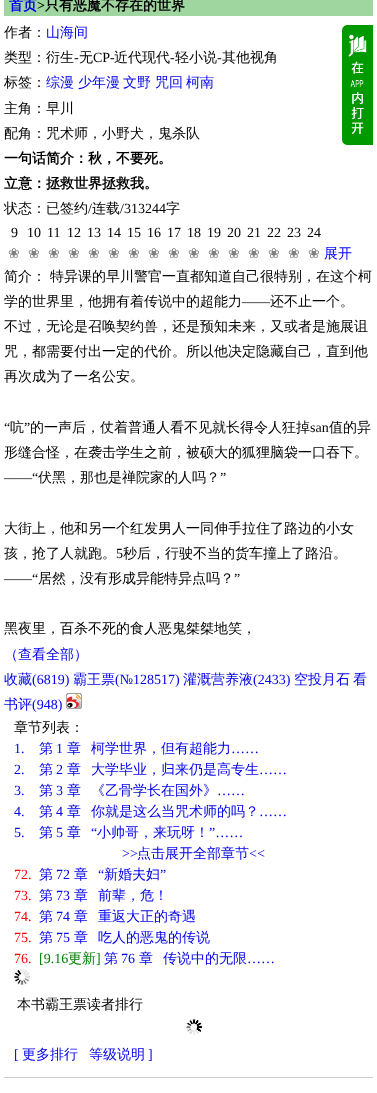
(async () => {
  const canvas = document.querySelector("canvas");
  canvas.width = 377;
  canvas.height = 1093;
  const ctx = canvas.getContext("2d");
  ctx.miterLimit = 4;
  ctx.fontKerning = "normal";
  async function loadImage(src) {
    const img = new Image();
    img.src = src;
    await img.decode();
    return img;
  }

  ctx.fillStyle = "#ffffff";
  ctx.fillRect(0, 0, 377, 1093);
  ctx.fillStyle = "#9fd59e";
  ctx.fillRect(4, 0, 369, 16);
  ctx.drawImage(await loadImage("img/1.png"), 342, 25, 31, 120);
  ctx.drawImage(await loadImage("img/2.png"), 66, 693, 16, 16);
  ctx.drawImage(await loadImage("img/3.png"), 14, 969, 16, 16);
  ctx.drawImage(await loadImage("img/4.png"), 186, 1019, 16, 16);
  ctx.fillStyle = "#cccccc";
  ctx.fillRect(4, 1077, 369, 1);
  ctx.font = "bold 14px WenQuanYi Zen Hei";
  ctx.fillStyle = "#0000ee";
  ctx.fillText("首页", 9, 10);
  ctx.font = "bold 14px Liberation Serif";
  ctx.fillStyle = "#000000";
  ctx.fillText(">", 37, 10);
  ctx.font = "bold 14px WenQuanYi Zen Hei";
  ctx.fillText("只有恶魔不存在的世界", 45, 10);
  ctx.font = "500 14px WenQuanYi Zen Hei";
  ctx.fillText("作者：", 4, 37);
  ctx.fillStyle = "#0000ee";
  ctx.fillText("山海间", 46, 37);
  ctx.fillStyle = "#000000";
  ctx.fillText("类型：衍生", 4, 62);
  ctx.font = "14px Liberation Serif";
  ctx.fillText("-", 74, 62);
  ctx.font = "500 14px WenQuanYi Zen Hei";
  ctx.fillText("无", 79, 62);
  ctx.font = "14px Liberation Serif";
  ctx.fillText("CP-", 93, 62);
  ctx.font = "500 14px WenQuanYi Zen Hei";
  ctx.fillText("近代现代", 114, 62);
  ctx.font = "14px Liberation Serif";
  ctx.fillText("-", 170, 62);
  ctx.font = "500 14px WenQuanYi Zen Hei";
  ctx.fillText("轻小说", 175, 62);
  ctx.font = "14px Liberation Serif";
  ctx.fillText("-", 217, 62);
  ctx.font = "500 14px WenQuanYi Zen Hei";
  ctx.fillText("其他视角", 222, 62);
  ctx.fillText("标签：", 4, 87);
  ctx.fillStyle = "#0000ee";
  for (const [text, x, y] of [
    ["综漫", 46, 87],
    ["少年漫", 78, 87],
    ["文野", 123, 87],
    ["咒回", 155, 87],
    ["柯南", 186, 87],
  ]) {
    ctx.fillText(text, x, y);
  }
  ctx.fillStyle = "#000000";
  ctx.fillText("主角：早川", 4, 113);
  ctx.fillText("配角：咒术师，小野犬，鬼杀队", 4, 138);
  ctx.font = "bold 14px WenQuanYi Zen Hei";
  ctx.fillText("一句话简介：秋，不要死。", 4, 163);
  ctx.fillText("立意：拯救世界拯救我。", 4, 188);
  ctx.font = "500 14px WenQuanYi Zen Hei";
  ctx.fillText("状态：已签约", 4, 213);
  ctx.font = "14px Liberation Serif";
  ctx.fillText("/", 88, 213);
  ctx.font = "500 14px WenQuanYi Zen Hei";
  ctx.fillText("连载", 92, 213);
  ctx.font = "14px Liberation Serif";
  ctx.fillText("/313244", 120, 213);
  ctx.font = "500 14px WenQuanYi Zen Hei";
  ctx.fillText("字", 166, 213);
  ctx.font = "14px Liberation Serif";
  ctx.fillText("9", 11, 237);
  ctx.font = "14px DejaVu Sans";
  ctx.fillStyle = "#808080";
  ctx.fillText("❀", 8, 258);
  ctx.font = "14px Liberation Serif";
  ctx.fillStyle = "#000000";
  ctx.fillText("10", 27, 237);
  ctx.font = "14px DejaVu Sans";
  ctx.fillStyle = "#808080";
  ctx.fillText("❀", 28, 258);
  ctx.font = "14px Liberation Serif";
  ctx.fillStyle = "#000000";
  ctx.fillText("11", 47, 237);
  ctx.font = "14px DejaVu Sans";
  ctx.fillStyle = "#808080";
  ctx.fillText("❀", 48, 258);
  ctx.font = "14px Liberation Serif";
  ctx.fillStyle = "#000000";
  ctx.fillText("12", 67, 237);
  ctx.font = "14px DejaVu Sans";
  ctx.fillStyle = "#808080";
  ctx.fillText("❀", 68, 258);
  ctx.font = "14px Liberation Serif";
  ctx.fillStyle = "#000000";
  ctx.fillText("13", 87, 237);
  ctx.font = "14px DejaVu Sans";
  ctx.fillStyle = "#808080";
  ctx.fillText("❀", 88, 258);
  ctx.font = "14px Liberation Serif";
  ctx.fillStyle = "#000000";
  ctx.fillText("14", 107, 237);
  ctx.font = "14px DejaVu Sans";
  ctx.fillStyle = "#808080";
  ctx.fillText("❀", 108, 258);
  ctx.font = "14px Liberation Serif";
  ctx.fillStyle = "#000000";
  ctx.fillText("15", 127, 237);
  ctx.font = "14px DejaVu Sans";
  ctx.fillStyle = "#808080";
  ctx.fillText("❀", 128, 258);
  ctx.font = "14px Liberation Serif";
  ctx.fillStyle = "#000000";
  ctx.fillText("16", 147, 237);
  ctx.font = "14px DejaVu Sans";
  ctx.fillStyle = "#808080";
  ctx.fillText("❀", 148, 258);
  ctx.font = "14px Liberation Serif";
  ctx.fillStyle = "#000000";
  ctx.fillText("17", 167, 237);
  ctx.font = "14px DejaVu Sans";
  ctx.fillStyle = "#808080";
  ctx.fillText("❀", 168, 258);
  ctx.font = "14px Liberation Serif";
  ctx.fillStyle = "#000000";
  ctx.fillText("18", 187, 237);
  ctx.font = "14px DejaVu Sans";
  ctx.fillStyle = "#808080";
  ctx.fillText("❀", 188, 258);
  ctx.font = "14px Liberation Serif";
  ctx.fillStyle = "#000000";
  ctx.fillText("19", 207, 237);
  ctx.font = "14px DejaVu Sans";
  ctx.fillStyle = "#808080";
  ctx.fillText("❀", 208, 258);
  ctx.font = "14px Liberation Serif";
  ctx.fillStyle = "#000000";
  ctx.fillText("20", 227, 237);
  ctx.font = "14px DejaVu Sans";
  ctx.fillStyle = "#808080";
  ctx.fillText("❀", 228, 258);
  ctx.font = "14px Liberation Serif";
  ctx.fillStyle = "#000000";
  ctx.fillText("21", 247, 237);
  ctx.font = "14px DejaVu Sans";
  ctx.fillStyle = "#808080";
  ctx.fillText("❀", 248, 258);
  ctx.font = "14px Liberation Serif";
  ctx.fillStyle = "#000000";
  ctx.fillText("22", 267, 237);
  ctx.font = "14px DejaVu Sans";
  ctx.fillStyle = "#808080";
  ctx.fillText("❀", 268, 258);
  ctx.font = "14px Liberation Serif";
  ctx.fillStyle = "#000000";
  ctx.fillText("23", 287, 237);
  ctx.font = "14px DejaVu Sans";
  ctx.fillStyle = "#808080";
  ctx.fillText("❀", 288, 258);
  ctx.font = "14px Liberation Serif";
  ctx.fillStyle = "#000000";
  ctx.fillText("24", 307, 237);
  ctx.font = "14px DejaVu Sans";
  ctx.fillStyle = "#808080";
  ctx.fillText("❀", 308, 258);
  ctx.font = "500 14px WenQuanYi Zen Hei";
  ctx.fillStyle = "#0000ff";
  ctx.fillText("展开", 324, 258);
  ctx.fillStyle = "#000000";
  for (const [text, x, y] of [
    ["简介：", 4, 281],
    ["特异课的早川警官一直都知道自己很特别，在这个柯", 50, 281],
    ["学的世界里，他拥有着传说中的超能力", 4, 306],
  ]) {
    ctx.fillText(text, x, y);
  }
  ctx.font = "14px Liberation Serif";
  ctx.fillText("——", 242, 306);
  ctx.font = "500 14px WenQuanYi Zen Hei";
  for (const [text, x, y] of [
    ["还不止一个。", 270, 306],
    ["不过，无论是召唤契约兽，还是预知未来，又或者是施展诅", 4, 331],
    ["咒，都需要付出一定的代价。所以他决定隐藏自己，直到他", 4, 356],
    ["再次成为了一名公安。", 4, 381],
  ]) {
    ctx.fillText(text, x, y);
  }
  ctx.font = "14px Liberation Serif";
  ctx.fillText("“", 4, 432);
  ctx.font = "500 14px WenQuanYi Zen Hei";
  ctx.fillText("吭", 10, 432);
  ctx.font = "14px Liberation Serif";
  ctx.fillText("”", 24, 432);
  ctx.font = "500 14px WenQuanYi Zen Hei";
  ctx.fillText("的一声后，仗着普通人看不见就长得令人狂掉", 30, 432);
  ctx.fillText("值的异", 329, 432);
  ctx.font = "14px Liberation Serif";
  ctx.fillText("san", 310, 432);
  ctx.font = "500 14px WenQuanYi Zen Hei";
  ctx.fillText("形缝合怪，在袭击学生之前，被硕大的狐狸脑袋一口吞下。", 4, 457);
  ctx.font = "14px Liberation Serif";
  ctx.fillText("——“", 4, 482);
  ctx.font = "500 14px WenQuanYi Zen Hei";
  ctx.fillText("伏黑，那也是禅院家的人吗？", 38, 482);
  ctx.font = "14px Liberation Serif";
  ctx.fillText("”", 220, 482);
  ctx.font = "500 14px WenQuanYi Zen Hei";
  ctx.fillText("大街上，他和另一个红发男人一同伸手拉住了路边的小女", 4, 533);
  ctx.fillText("孩，抢了人就跑。", 4, 558);
  ctx.font = "14px Liberation Serif";
  ctx.fillText("5", 116, 558);
  ctx.font = "500 14px WenQuanYi Zen Hei";
  ctx.fillText("秒后，行驶不当的货车撞上了路沿。", 123, 558);
  ctx.font = "14px Liberation Serif";
  ctx.fillText("——“", 4, 583);
  ctx.font = "500 14px WenQuanYi Zen Hei";
  ctx.fillText("居然，没有形成异能特异点吗？", 38, 583);
  ctx.font = "14px Liberation Serif";
  ctx.fillText("”", 234, 583);
  ctx.font = "500 14px WenQuanYi Zen Hei";
  ctx.fillText("黑夜里，百杀不死的食人恶鬼桀桀地笑，", 4, 633);
  ctx.fillStyle = "#0000ee";
  ctx.fillText("（查看全部）", 4, 659);
  ctx.fillText("收藏", 4, 684);
  ctx.font = "14px Liberation Serif";
  ctx.fillText("(6819)", 32, 684);
  ctx.font = "500 14px WenQuanYi Zen Hei";
  ctx.fillText("霸王票", 73, 684);
  ctx.font = "14px Liberation Serif";
  ctx.fillText("(№128517)", 115, 684);
  ctx.font = "500 14px WenQuanYi Zen Hei";
  ctx.fillText("灌溉营养液", 183, 684);
  ctx.font = "14px Liberation Serif";
  ctx.fillText("(2433)", 253, 684);
  ctx.font = "500 14px WenQuanYi Zen Hei";
  for (const [text, x, y] of [
    ["空投月石", 294, 684],
    ["看", 353, 684],
    ["书评", 4, 709],
  ]) {
    ctx.fillText(text, x, y);
  }
  ctx.font = "14px Liberation Serif";
  ctx.fillText("(948)", 32, 709);
  ctx.font = "500 14px WenQuanYi Zen Hei";
  ctx.fillStyle = "#000000";
  ctx.fillText("章节列表：", 14, 732);
  ctx.font = "14px Liberation Serif";
  ctx.fillStyle = "#0000ee";
  ctx.fillText("1.", 14, 753);
  ctx.font = "500 14px WenQuanYi Zen Hei";
  ctx.fillText("第", 39, 753);
  ctx.font = "14px Liberation Serif";
  ctx.fillText("1", 56, 753);
  ctx.font = "500 14px WenQuanYi Zen Hei";
  ctx.fillText("章", 67, 753);
  ctx.fillText("柯学世界，但有超能力", 91, 753);
  ctx.font = "14px Liberation Serif";
  ctx.fillText("……", 231, 753);
  ctx.fillText("2.", 14, 774);
  ctx.font = "500 14px WenQuanYi Zen Hei";
  ctx.fillText("第", 39, 774);
  ctx.font = "14px Liberation Serif";
  ctx.fillText("2", 56, 774);
  ctx.font = "500 14px WenQuanYi Zen Hei";
  ctx.fillText("章", 67, 774);
  ctx.fillText("大学毕业，归来仍是高专生", 91, 774);
  ctx.font = "14px Liberation Serif";
  ctx.fillText("……", 259, 774);
  ctx.fillText("3.", 14, 795);
  ctx.font = "500 14px WenQuanYi Zen Hei";
  ctx.fillText("第", 39, 795);
  ctx.font = "14px Liberation Serif";
  ctx.fillText("3", 56, 795);
  ctx.font = "500 14px WenQuanYi Zen Hei";
  ctx.fillText("章", 67, 795);
  ctx.fillText("《乙骨学长在国外》", 91, 795);
  ctx.font = "14px Liberation Serif";
  ctx.fillText("……", 217, 795);
  ctx.fillText("4.", 14, 816);
  ctx.font = "500 14px WenQuanYi Zen Hei";
  ctx.fillText("第", 39, 816);
  ctx.font = "14px Liberation Serif";
  ctx.fillText("4", 56, 816);
  ctx.font = "500 14px WenQuanYi Zen Hei";
  ctx.fillText("章", 67, 816);
  ctx.fillText("你就是这么当咒术师的吗？", 91, 816);
  ctx.font = "14px Liberation Serif";
  ctx.fillText("……", 259, 816);
  ctx.fillText("5.", 14, 837);
  ctx.font = "500 14px WenQuanYi Zen Hei";
  ctx.fillText("第", 39, 837);
  ctx.font = "14px Liberation Serif";
  ctx.fillText("5", 56, 837);
  ctx.font = "500 14px WenQuanYi Zen Hei";
  ctx.fillText("章", 67, 837);
  ctx.font = "14px Liberation Serif";
  ctx.fillText("“", 91, 837);
  ctx.font = "500 14px WenQuanYi Zen Hei";
  ctx.fillText("小帅哥，来玩呀！", 97, 837);
  ctx.font = "14px Liberation Serif";
  ctx.fillText("”……", 209, 837);
  ctx.fillText(">>", 122, 858);
  ctx.font = "500 14px WenQuanYi Zen Hei";
  ctx.fillText("点击展开全部章节", 137, 858);
  ctx.font = "14px Liberation Serif";
  ctx.fillText("<<", 249, 858);
  ctx.fillStyle = "#ff0000";
  ctx.fillText("72.", 14, 879);
  ctx.font = "500 14px WenQuanYi Zen Hei";
  ctx.fillStyle = "#0000ee";
  ctx.fillText("第", 39, 879);
  ctx.font = "14px Liberation Serif";
  ctx.fillText("72", 56, 879);
  ctx.font = "500 14px WenQuanYi Zen Hei";
  ctx.fillText("章", 74, 879);
  ctx.font = "14px Liberation Serif";
  ctx.fillText("“", 98, 879);
  ctx.font = "500 14px WenQuanYi Zen Hei";
  ctx.fillText("新婚夫妇", 104, 879);
  ctx.font = "14px Liberation Serif";
  ctx.fillText("”", 160, 879);
  ctx.fillStyle = "#ff0000";
  ctx.fillText("73.", 14, 900);
  ctx.font = "500 14px WenQuanYi Zen Hei";
  ctx.fillStyle = "#0000ee";
  ctx.fillText("第", 39, 900);
  ctx.font = "14px Liberation Serif";
  ctx.fillText("73", 56, 900);
  ctx.font = "500 14px WenQuanYi Zen Hei";
  ctx.fillText("章", 74, 900);
  ctx.fillText("前辈，危！", 98, 900);
  ctx.font = "14px Liberation Serif";
  ctx.fillStyle = "#ff0000";
  ctx.fillText("74.", 14, 921);
  ctx.font = "500 14px WenQuanYi Zen Hei";
  ctx.fillStyle = "#0000ee";
  ctx.fillText("第", 39, 921);
  ctx.font = "14px Liberation Serif";
  ctx.fillText("74", 56, 921);
  ctx.font = "500 14px WenQuanYi Zen Hei";
  ctx.fillText("章", 74, 921);
  ctx.fillText("重返大正的奇遇", 98, 921);
  ctx.font = "14px Liberation Serif";
  ctx.fillStyle = "#ff0000";
  ctx.fillText("75.", 14, 942);
  ctx.font = "500 14px WenQuanYi Zen Hei";
  ctx.fillStyle = "#0000ee";
  ctx.fillText("第", 39, 942);
  ctx.font = "14px Liberation Serif";
  ctx.fillText("75", 56, 942);
  ctx.font = "500 14px WenQuanYi Zen Hei";
  ctx.fillText("章", 74, 942);
  ctx.fillText("吃人的恶鬼的传说", 98, 942);
  ctx.font = "14px Liberation Serif";
  ctx.fillStyle = "#ff0000";
  ctx.fillText("76.", 14, 963);
  ctx.fillStyle = "#008000";
  ctx.fillText("[9.16", 39, 963);
  ctx.font = "500 14px WenQuanYi Zen Hei";
  ctx.fillText("更新", 68, 963);
  ctx.font = "14px Liberation Serif";
  ctx.fillText("]", 96, 963);
  ctx.font = "500 14px WenQuanYi Zen Hei";
  ctx.fillStyle = "#0000ee";
  ctx.fillText("第", 104, 963);
  ctx.font = "14px Liberation Serif";
  ctx.fillText("76", 121, 963);
  ctx.font = "500 14px WenQuanYi Zen Hei";
  ctx.fillText("章", 139, 963);
  ctx.fillText("传说中的无限", 163, 963);
  ctx.font = "14px Liberation Serif";
  ctx.fillText("……", 247, 963);
  ctx.font = "500 14px WenQuanYi Zen Hei";
  ctx.fillStyle = "#000000";
  ctx.fillText("本书霸王票读者排行", 17, 1009);
  ctx.font = "14px Liberation Serif";
  ctx.fillStyle = "#0000ee";
  ctx.fillText("[", 14, 1059);
  ctx.font = "500 14px WenQuanYi Zen Hei";
  ctx.fillText("更多排行", 22, 1059);
  ctx.fillText("等级说明", 89, 1059);
  ctx.font = "14px Liberation Serif";
  ctx.fillText("]", 148, 1059);
})();
